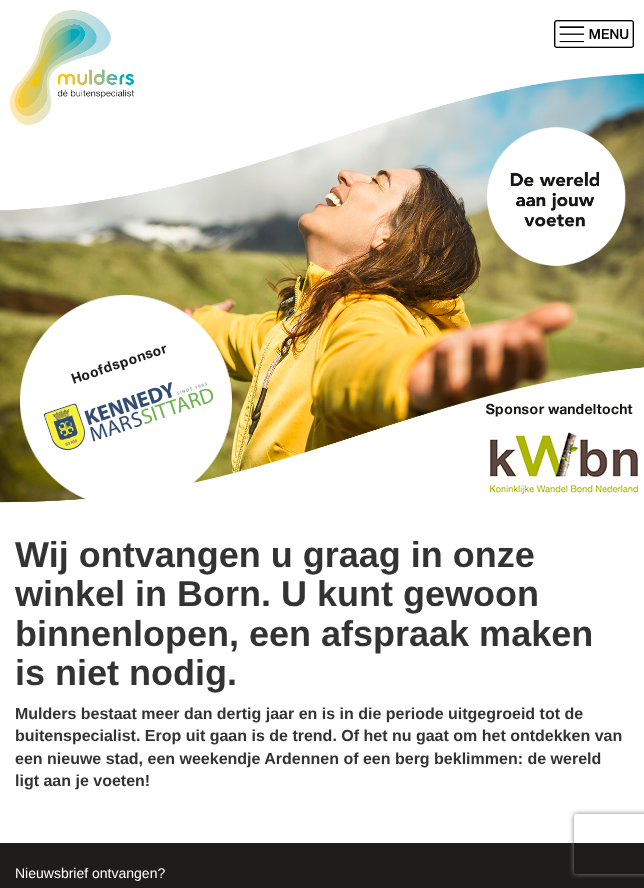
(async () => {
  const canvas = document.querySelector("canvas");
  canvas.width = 644;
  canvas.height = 888;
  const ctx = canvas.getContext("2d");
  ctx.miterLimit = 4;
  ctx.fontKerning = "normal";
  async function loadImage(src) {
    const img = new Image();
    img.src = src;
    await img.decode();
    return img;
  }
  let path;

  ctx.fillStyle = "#ffffff";
  ctx.fillRect(0, 0, 644, 888);
  ctx.drawImage(await loadImage("img/5.png"), 0, 73, 644, 430);
  ctx.drawImage(await loadImage("img/1.png"), 10, 10, 124, 115);
  ctx.drawImage(await loadImage("img/2.png"), 554, 20, 80, 28);
  ctx.drawImage(await loadImage("img/3.png"), 20, 295, 212, 204);
  ctx.drawImage(await loadImage("img/4.png"), 486, 403, 153, 92);
  ctx.fillStyle = "#1e1d1c";
  ctx.fillRect(0, 843, 644, 45);
  ctx.save();
  path = new Path2D("M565 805H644V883H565ZM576 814H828C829 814 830 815 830 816V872C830 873 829 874 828 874H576C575 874 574 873 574 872V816C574 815 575 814 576 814Z");
  ctx.clip(path, "evenodd");
  ctx.fillStyle = "#808080";
  ctx.filter = "blur(2.5px)";
  ctx.beginPath();
  ctx.roundRect(574, 814, 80, 60, 2);
  ctx.fill();
  ctx.filter = "none";
  ctx.restore();
  ctx.font = "bold 36px Liberation Sans";
  ctx.fillStyle = "#333333";
  for (const [text, x, y] of [
    ["Wij ontvangen u graag in onze", 15, 567],
    ["winkel in Born. U kunt gewoon", 15, 606],
    ["binnenlopen, een afspraak maken", 15, 646],
    ["is niet nodig.", 15, 685],
  ]) {
    ctx.fillText(text, x, y);
  }
  ctx.font = "bold 16px Liberation Sans";
  for (const [text, x, y] of [
    ["Mulders bestaat meer dan dertig jaar en is in die periode uitgegroeid tot de", 15, 719],
    ["buitenspecialist. Erop uit gaan is de trend. Of het nu gaat om het ontdekken van", 15, 741],
    ["een nieuwe stad, een weekendje Ardennen of een berg beklimmen: de wereld", 15, 764],
    ["ligt aan je voeten!", 15, 786],
  ]) {
    ctx.fillText(text, x, y);
  }
  ctx.font = "14px Liberation Sans";
  ctx.fillStyle = "#ffffff";
  ctx.fillText("Nieuwsbrief ontvangen?", 15, 878);
})();
